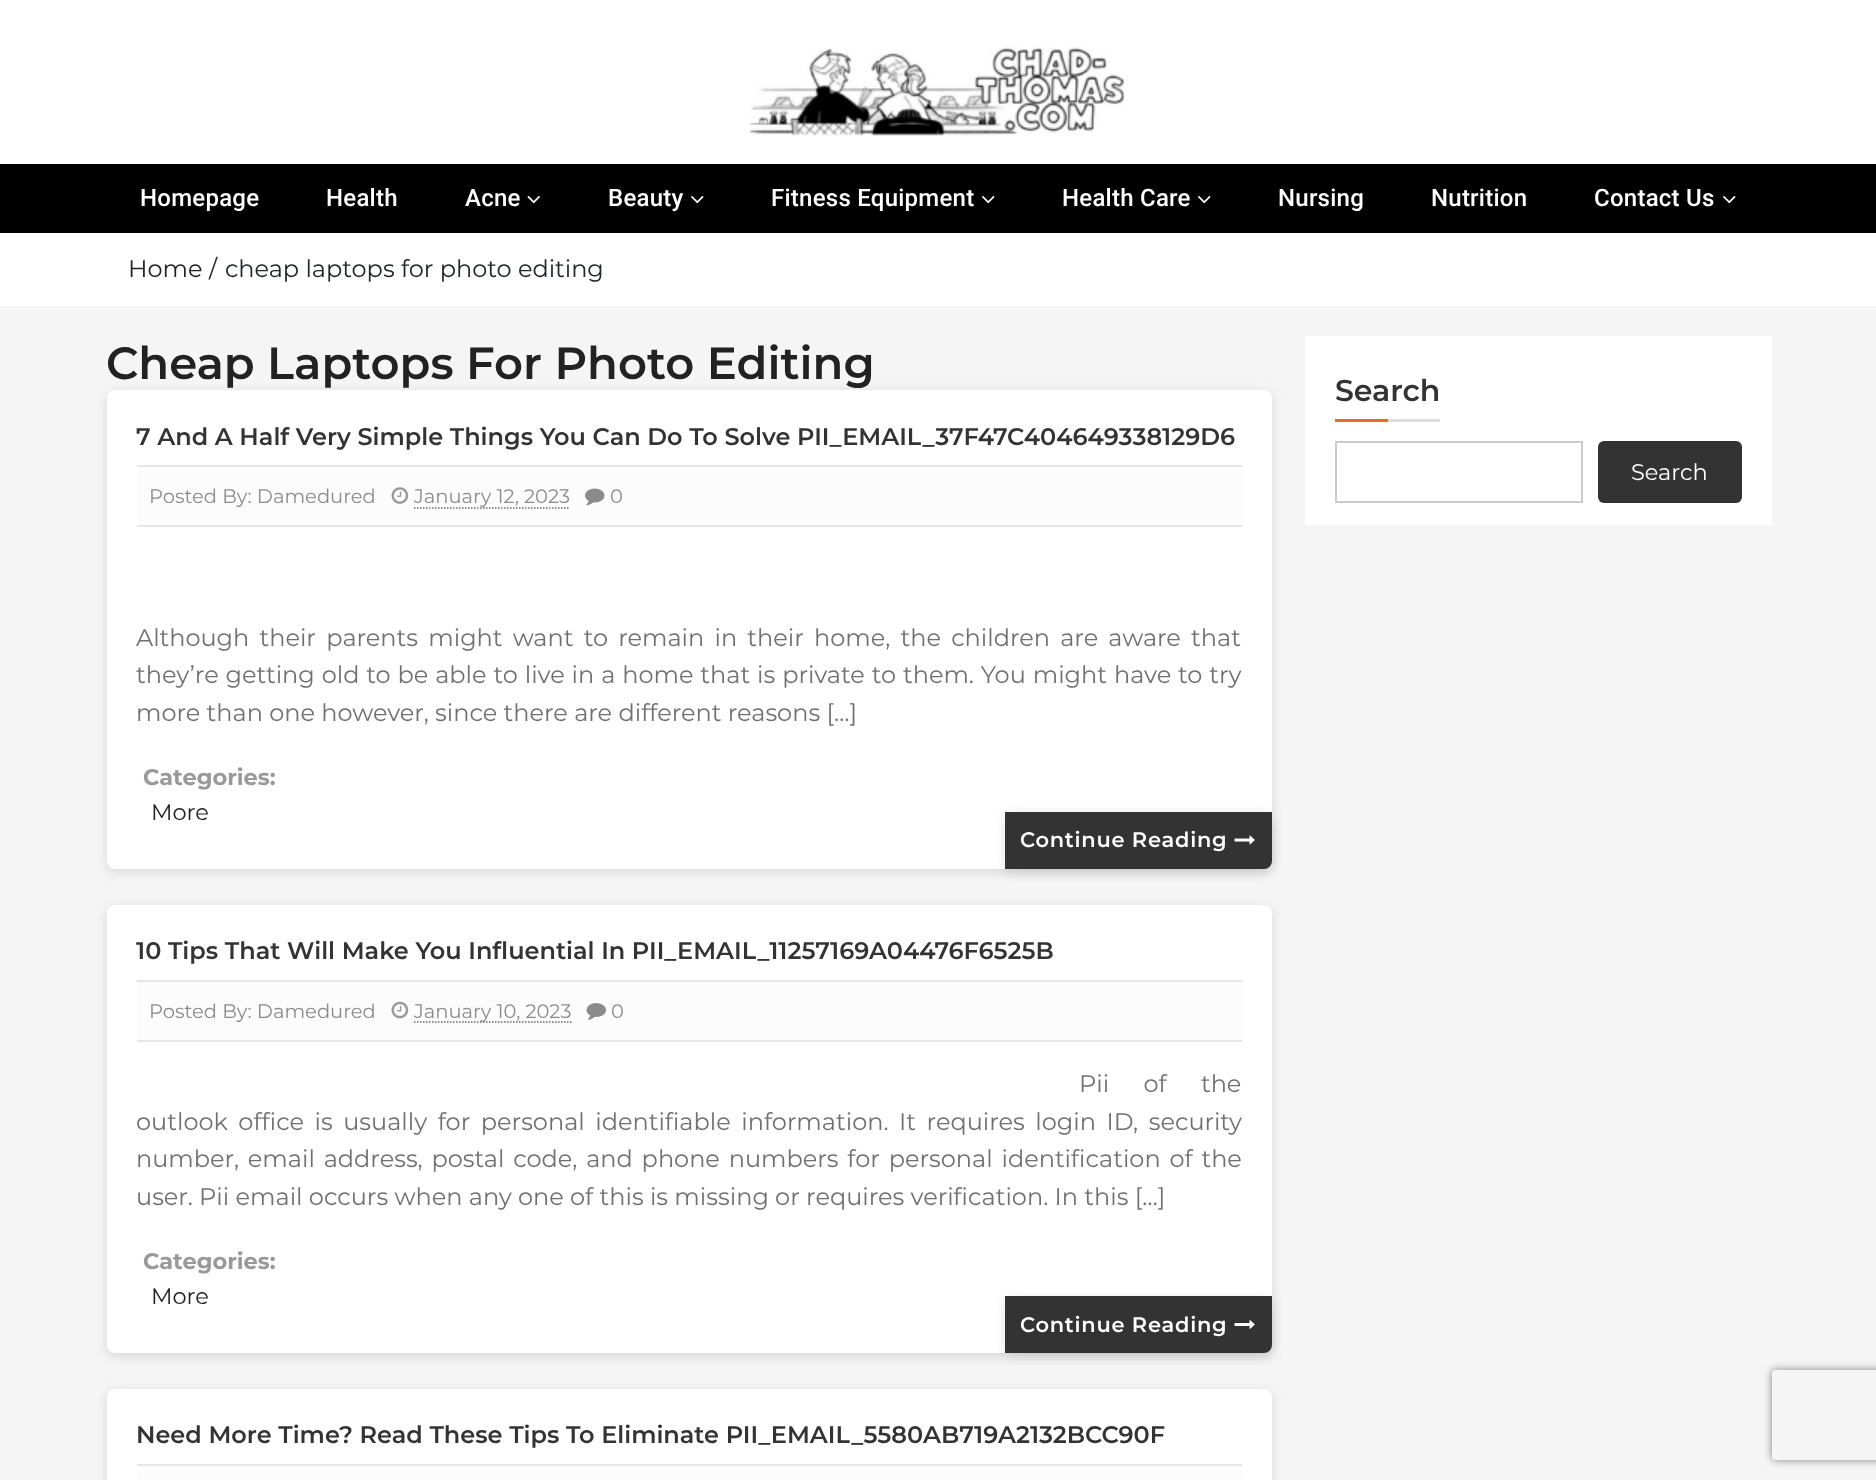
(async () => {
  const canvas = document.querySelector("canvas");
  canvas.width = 1876;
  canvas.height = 1480;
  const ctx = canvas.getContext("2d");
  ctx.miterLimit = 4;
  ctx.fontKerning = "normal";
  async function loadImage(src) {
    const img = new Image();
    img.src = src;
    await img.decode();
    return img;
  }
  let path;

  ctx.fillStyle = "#f5f5f5";
  ctx.fillRect(0, 0, 1876, 1480);
  ctx.fillStyle = "#ffffff";
  ctx.fillRect(0, 0, 1876, 164);
  ctx.drawImage(await loadImage("img/1.png"), 750, 47, 375, 89);
  ctx.fillStyle = "#000000";
  ctx.fillRect(0, 164, 1876, 69);
  ctx.drawImage(await loadImage("img/2.png"), 527, 196, 13, 8);
  ctx.drawImage(await loadImage("img/3.png"), 691, 196, 13, 8);
  ctx.drawImage(await loadImage("img/3.png"), 982, 196, 13, 8);
  ctx.drawImage(await loadImage("img/3.png"), 1198, 196, 13, 8);
  ctx.drawImage(await loadImage("img/3.png"), 1723, 196, 13, 8);
  ctx.fillStyle = "#ffffff";
  ctx.fillRect(0, 233, 1876, 73);
  ctx.fillStyle = "rgba(99, 99, 99, 0.2)";
  ctx.filter = "blur(6px)";
  ctx.beginPath();
  ctx.roundRect(107, 393, 1165, 479, 8);
  ctx.fill();
  ctx.filter = "none";
  ctx.fillStyle = "#ffffff";
  ctx.beginPath();
  ctx.roundRect(107, 390, 1165, 479, 8);
  ctx.fill();
  for (const [x, y, w, h, color] of [
    [137, 467, 1105, 58, "#fcfcfc"],
    [137, 465, 1105, 2, "#e6e6e6"],
    [137, 525, 1105, 2, "#e6e6e6"],
  ]) {
    ctx.fillStyle = color;
    ctx.fillRect(x, y, w, h);
  }
  ctx.drawImage(await loadImage("img/4.png"), 391, 487, 18, 17);
  path = new Path2D("M414 508H570");
  ctx.strokeStyle = "#666666";
  ctx.lineWidth = 1.5;
  ctx.setLineDash([1.5, 1.5]);
  ctx.stroke(path);
  ctx.drawImage(await loadImage("img/5.png"), 585, 488, 20, 18);
  ctx.fillStyle = "rgba(99, 99, 99, 0.2)";
  ctx.filter = "blur(6px)";
  ctx.beginPath();
  ctx.roundRect(1005, 815, 267, 57, 8);
  ctx.fill();
  ctx.filter = "none";
  ctx.fillStyle = "#333333";
  ctx.beginPath();
  ctx.roundRect(1005, 812, 267, 57, [0, 0, 8, 0]);
  ctx.fill();
  ctx.drawImage(await loadImage("img/6.png"), 1234, 835, 21, 10);
  ctx.fillStyle = "rgba(99, 99, 99, 0.2)";
  ctx.filter = "blur(6px)";
  ctx.beginPath();
  ctx.roundRect(107, 908, 1165, 448, 8);
  ctx.fill();
  ctx.filter = "none";
  ctx.fillStyle = "#ffffff";
  ctx.beginPath();
  ctx.roundRect(107, 905, 1165, 448, 8);
  ctx.fill();
  for (const [x, y, w, h, color] of [
    [137, 982, 1105, 58, "#fcfcfc"],
    [137, 980, 1105, 2, "#e6e6e6"],
    [137, 1040, 1105, 2, "#e6e6e6"],
  ]) {
    ctx.fillStyle = color;
    ctx.fillRect(x, y, w, h);
  }
  ctx.drawImage(await loadImage("img/7.png"), 391, 1001, 18, 18);
  path = new Path2D("M414 1022H571.5");
  ctx.stroke(path);
  ctx.drawImage(await loadImage("img/8.png"), 586, 1003, 20, 17);
  ctx.fillStyle = "rgba(99, 99, 99, 0.2)";
  ctx.filter = "blur(6px)";
  ctx.beginPath();
  ctx.roundRect(1005, 1299, 267, 57, 8);
  ctx.fill();
  ctx.filter = "none";
  ctx.fillStyle = "#333333";
  ctx.beginPath();
  ctx.roundRect(1005, 1296, 267, 57, [0, 0, 8, 0]);
  ctx.fill();
  ctx.drawImage(await loadImage("img/9.png"), 1234, 1320, 21, 9);
  ctx.fillStyle = "rgba(99, 99, 99, 0.2)";
  ctx.filter = "blur(6px)";
  ctx.beginPath();
  ctx.roundRect(107, 1392, 1165, 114, 8);
  ctx.fill();
  ctx.filter = "none";
  ctx.fillStyle = "#ffffff";
  ctx.beginPath();
  ctx.roundRect(107, 1389, 1165, 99, 8);
  ctx.fill();
  for (const [x, y, w, h, color] of [
    [137, 1466, 1105, 14, "#fcfcfc"],
    [137, 1464, 1105, 2, "#e6e6e6"],
    [1305, 336, 467, 189, "#ffffff"],
    [1335, 419, 53, 3, "#eb6e1a"],
    [1388, 419, 52, 3, "#dddddd"],
  ]) {
    ctx.fillStyle = color;
    ctx.fillRect(x, y, w, h);
  }
  ctx.strokeStyle = "#cccccc";
  ctx.lineWidth = 2;
  ctx.setLineDash([]);
  ctx.strokeRect(1336, 442, 246, 60);
  ctx.fillStyle = "#333333";
  ctx.beginPath();
  ctx.roundRect(1598, 441, 144, 62, 6);
  ctx.fill();
  ctx.save();
  path = new Path2D("M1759 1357H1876V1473H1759ZM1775 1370H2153C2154.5 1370 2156 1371.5 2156 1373V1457C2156 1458.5 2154.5 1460 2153 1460H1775C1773.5 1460 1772 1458.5 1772 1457V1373C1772 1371.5 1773.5 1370 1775 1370Z");
  ctx.clip(path, "evenodd");
  ctx.fillStyle = "#808080";
  ctx.filter = "blur(4px)";
  ctx.beginPath();
  ctx.roundRect(1772, 1370, 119, 90, 3);
  ctx.fill();
  ctx.filter = "none";
  ctx.restore();
  ctx.letterSpacing = "0.25px";
  ctx.font = "500 24px Roboto";
  ctx.fillStyle = "#ffffff";
  for (const [text, x, y] of [
    ["Homepage", 140, 206],
    ["Health", 326, 206],
    ["Acne", 465, 206],
    ["Beauty", 608, 206],
    ["Fitness Equipment", 771, 206],
    ["Health Care", 1062, 206],
    ["Nursing", 1278, 206],
    ["Nutrition", 1431, 206],
    ["Contact Us", 1594, 206],
  ]) {
    ctx.fillText(text, x, y);
  }
  ctx.letterSpacing = "0px";
  ctx.font = "24px Montserrat";
  ctx.fillStyle = "#222222";
  ctx.fillText("Home", 128, 277);
  ctx.fillStyle = "#212529";
  ctx.fillText("/", 209, 277);
  ctx.fillText("cheap laptops for photo editing", 225, 277);
  ctx.font = "600 45px Montserrat";
  ctx.fillStyle = "#222222";
  ctx.fillText("Cheap Laptops For Photo Editing", 106, 379);
  ctx.font = "600 24px Montserrat";
  ctx.fillStyle = "#333333";
  ctx.fillText("7 And A Half Very Simple Things You Can Do To Solve PII_EMAIL_37F47C404649338129D6", 136, 445);
  ctx.font = "19.5px Montserrat";
  ctx.fillStyle = "#8b8b8b";
  for (const [text, x, y] of [
    ["Posted By: Damedured", 149, 503],
    ["January 12, 2023", 414, 503],
    ["0", 610, 503],
  ]) {
    ctx.fillText(text, x, y);
  }
  ctx.wordSpacing = "3.9px";
  ctx.font = "24px Montserrat";
  ctx.fillStyle = "#707070";
  ctx.fillText("Although their parents might want to remain in their home, the children are aware that", 136, 646);
  ctx.wordSpacing = "0.6px";
  ctx.fillText("they’re getting old to be able to live in a home that is private to them. You might have to try", 136, 683);
  ctx.wordSpacing = "0px";
  ctx.fillText("more than one however, since there are different reasons […]", 136, 721);
  ctx.font = "bold 22.5px Montserrat";
  ctx.fillStyle = "#999999";
  ctx.fillText("Categories:", 143, 785);
  ctx.font = "22.5px Montserrat";
  ctx.fillStyle = "#222222";
  ctx.fillText("More", 151, 820);
  ctx.letterSpacing = "0.75px";
  ctx.font = "600 21px Montserrat";
  ctx.fillStyle = "#ffffff";
  ctx.fillText("Continue Reading", 1020, 847);
  ctx.letterSpacing = "0px";
  ctx.font = "600 24px Montserrat";
  ctx.fillStyle = "#333333";
  ctx.fillText("10 Tips That Will Make You Influential In PII_EMAIL_11257169A04476F6525B", 136, 959);
  ctx.font = "19.5px Montserrat";
  ctx.fillStyle = "#8b8b8b";
  for (const [text, x, y] of [
    ["Posted By: Damedured", 149, 1018],
    ["January 10, 2023", 414, 1018],
    ["0", 611, 1018],
  ]) {
    ctx.fillText(text, x, y);
  }
  ctx.wordSpacing = "28px";
  ctx.font = "24px Montserrat";
  ctx.fillStyle = "#707070";
  ctx.fillText("Pii of the", 1079, 1092);
  ctx.wordSpacing = "4.25px";
  ctx.fillText("outlook office is usually for personal identifiable information. It requires login ID, security", 136, 1130);
  ctx.wordSpacing = "2.5px";
  ctx.fillText("number, email address, postal code, and phone numbers for personal identification of the", 136, 1167);
  ctx.wordSpacing = "0px";
  ctx.fillText("user. Pii email occurs when any one of this is missing or requires verification. In this […]", 136, 1205);
  ctx.font = "bold 22.5px Montserrat";
  ctx.fillStyle = "#999999";
  ctx.fillText("Categories:", 143, 1269);
  ctx.font = "22.5px Montserrat";
  ctx.fillStyle = "#222222";
  ctx.fillText("More", 151, 1304);
  ctx.letterSpacing = "0.75px";
  ctx.font = "600 21px Montserrat";
  ctx.fillStyle = "#ffffff";
  ctx.fillText("Continue Reading", 1020, 1332);
  ctx.letterSpacing = "0px";
  ctx.font = "600 24px Montserrat";
  ctx.fillStyle = "#333333";
  ctx.fillText("Need More Time? Read These Tips To Eliminate PII_EMAIL_5580AB719A2132BCC90F", 136, 1443);
  ctx.font = "600 30px Montserrat";
  ctx.fillText("Search", 1335, 401);
  ctx.font = "22.5px Montserrat";
  ctx.fillStyle = "#ffffff";
  ctx.fillText("Search", 1631, 480);
})();
